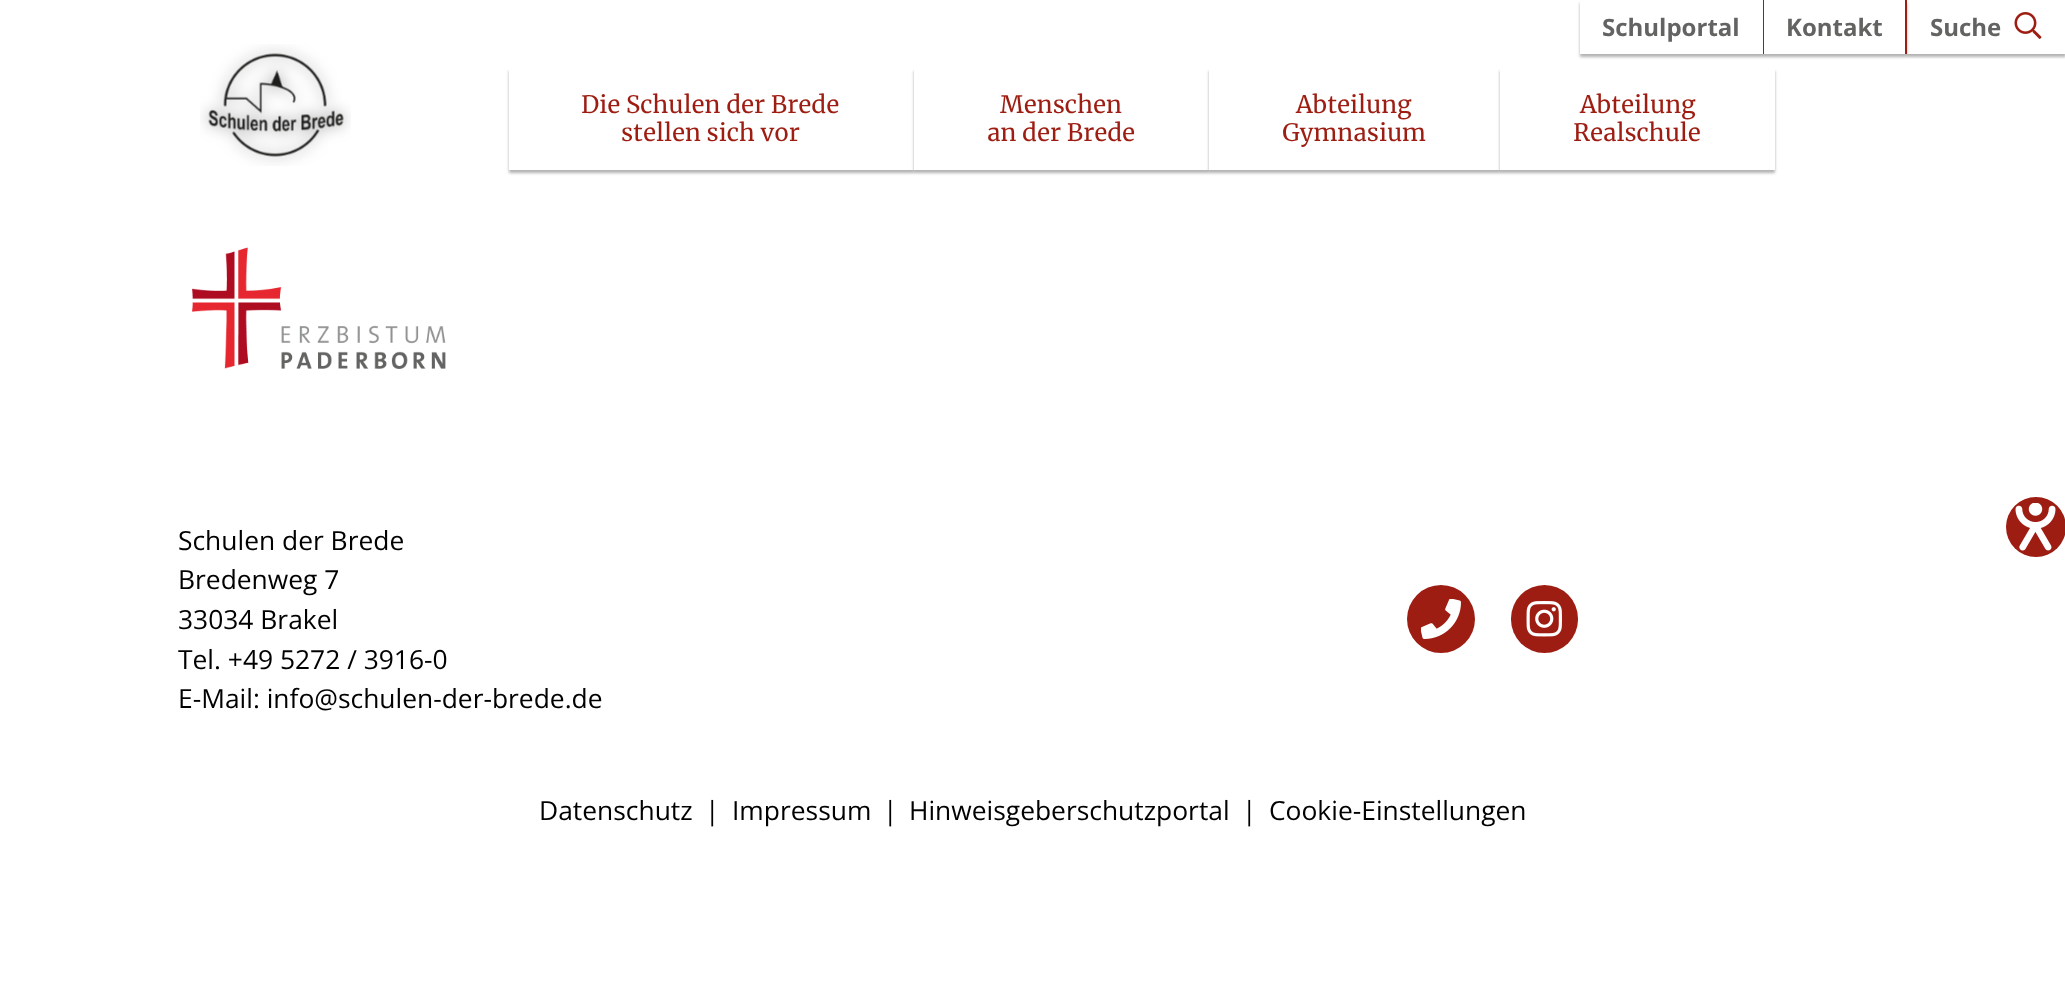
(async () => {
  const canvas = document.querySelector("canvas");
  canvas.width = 2065;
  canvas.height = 991;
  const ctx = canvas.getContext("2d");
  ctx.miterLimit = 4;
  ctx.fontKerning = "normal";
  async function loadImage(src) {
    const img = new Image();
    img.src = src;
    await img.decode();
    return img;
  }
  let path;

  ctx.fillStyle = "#ffffff";
  ctx.fillRect(0, 0, 2065, 991);
  ctx.save();
  path = new Path2D("M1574 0H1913V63H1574ZM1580 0H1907V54H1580Z");
  ctx.clip(path, "evenodd");
  ctx.fillStyle = "rgba(0, 0, 0, 0.3)";
  ctx.filter = "blur(1.5px)";
  ctx.beginPath();
  ctx.rect(1580, 3, 327, 54);
  ctx.fill();
  ctx.filter = "none";
  ctx.restore();
  ctx.fillStyle = "#9d1d12";
  ctx.fillRect(1763, 0, 1, 54);
  ctx.save();
  ctx.beginPath();
  ctx.rect(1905, 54, 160, 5);
  ctx.clip();
  ctx.fillStyle = "rgba(0, 0, 0, 0.3)";
  ctx.filter = "blur(1.5px)";
  ctx.beginPath();
  ctx.rect(1907, 3, 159, 54);
  ctx.fill();
  ctx.filter = "none";
  ctx.restore();
  ctx.fillStyle = "#ffffff";
  ctx.fillRect(1904, 4, 1, 50);
  ctx.fillStyle = "#9d1d12";
  ctx.fillRect(1905, 0, 2, 54);
  ctx.drawImage(await loadImage("img/1.png"), 2014, 12, 28, 27);
  ctx.drawImage(await loadImage("img/2.png"), 200, 44, 151, 122);
  ctx.fillStyle = "rgba(0, 0, 0, 0.3)";
  ctx.filter = "blur(1.5px)";
  ctx.beginPath();
  ctx.rect(509, 71, 405, 102);
  ctx.fill();
  ctx.filter = "none";
  ctx.fillStyle = "#ffffff";
  ctx.fillRect(509, 68, 405, 102);
  ctx.fillStyle = "rgba(0, 0, 0, 0.3)";
  ctx.filter = "blur(1.5px)";
  ctx.beginPath();
  ctx.rect(914, 71, 295, 102);
  ctx.fill();
  ctx.filter = "none";
  ctx.fillStyle = "#ffffff";
  ctx.fillRect(914, 68, 295, 102);
  ctx.fillStyle = "rgba(0, 0, 0, 0.3)";
  ctx.filter = "blur(1.5px)";
  ctx.beginPath();
  ctx.rect(1209, 71, 291, 102);
  ctx.fill();
  ctx.filter = "none";
  ctx.fillStyle = "#ffffff";
  ctx.fillRect(1209, 68, 291, 102);
  ctx.fillStyle = "rgba(0, 0, 0, 0.3)";
  ctx.filter = "blur(1.5px)";
  ctx.beginPath();
  ctx.rect(1500, 71, 275, 102);
  ctx.fill();
  ctx.filter = "none";
  ctx.fillStyle = "#ffffff";
  ctx.fillRect(1500, 68, 275, 102);
  ctx.drawImage(await loadImage("img/3.png"), 192, 247, 254, 122);
  ctx.fillStyle = "#9d1d12";
  ctx.beginPath();
  ctx.arc(1441, 619, 34, 0, Math.PI * 2);
  ctx.fill();
  ctx.drawImage(await loadImage("img/4.png"), 1421, 599, 40, 40);
  ctx.beginPath();
  ctx.roundRect(1511, 585, 67, 68, 33.5);
  ctx.fill();
  ctx.drawImage(await loadImage("img/5.png"), 1526, 601, 36, 36);
  ctx.beginPath();
  ctx.arc(2036, 527, 30, 0, Math.PI * 2);
  ctx.fill();
  ctx.drawImage(await loadImage("img/6.png"), 2015, 503, 41, 48);
  ctx.font = "bold 24px Open Sans";
  ctx.fillStyle = "#636362";
  for (const [text, x, y] of [
    ["Schulportal", 1602, 36],
    ["Kontakt", 1786, 36],
    ["Suche", 1930, 36],
  ]) {
    ctx.fillText(text, x, y);
  }
  ctx.font = "24px Merriweather";
  ctx.fillStyle = "#9d1d12";
  for (const [text, x, y] of [
    ["Die Schulen der Brede", 581, 113],
    ["stellen sich vor", 621, 141],
    ["Menschen", 1000, 113],
    ["an der Brede", 987, 141],
    ["Abteilung", 1296, 113],
    ["Gymnasium", 1282, 141],
    ["Abteilung", 1580, 113],
    ["Realschule", 1573, 141],
  ]) {
    ctx.fillText(text, x, y);
  }
  ctx.font = "26.4px Open Sans";
  ctx.fillStyle = "#000000";
  for (const [text, x, y] of [
    ["Schulen der Brede", 178, 550],
    ["Bredenweg 7", 178, 589],
    ["33034 Brakel", 178, 629],
    ["Tel. +49 5272 / 3916-0", 178, 669],
    ["E-Mail: info@schulen-der-brede.de", 178, 708],
    ["Datenschutz", 539, 820],
    ["|", 705, 820],
    ["Impressum", 732, 820],
    ["|", 883, 820],
    ["Hinweisgeberschutzportal", 909, 820],
    ["|", 1242, 820],
    ["Cookie-Einstellungen", 1269, 820],
  ]) {
    ctx.fillText(text, x, y);
  }
})();
